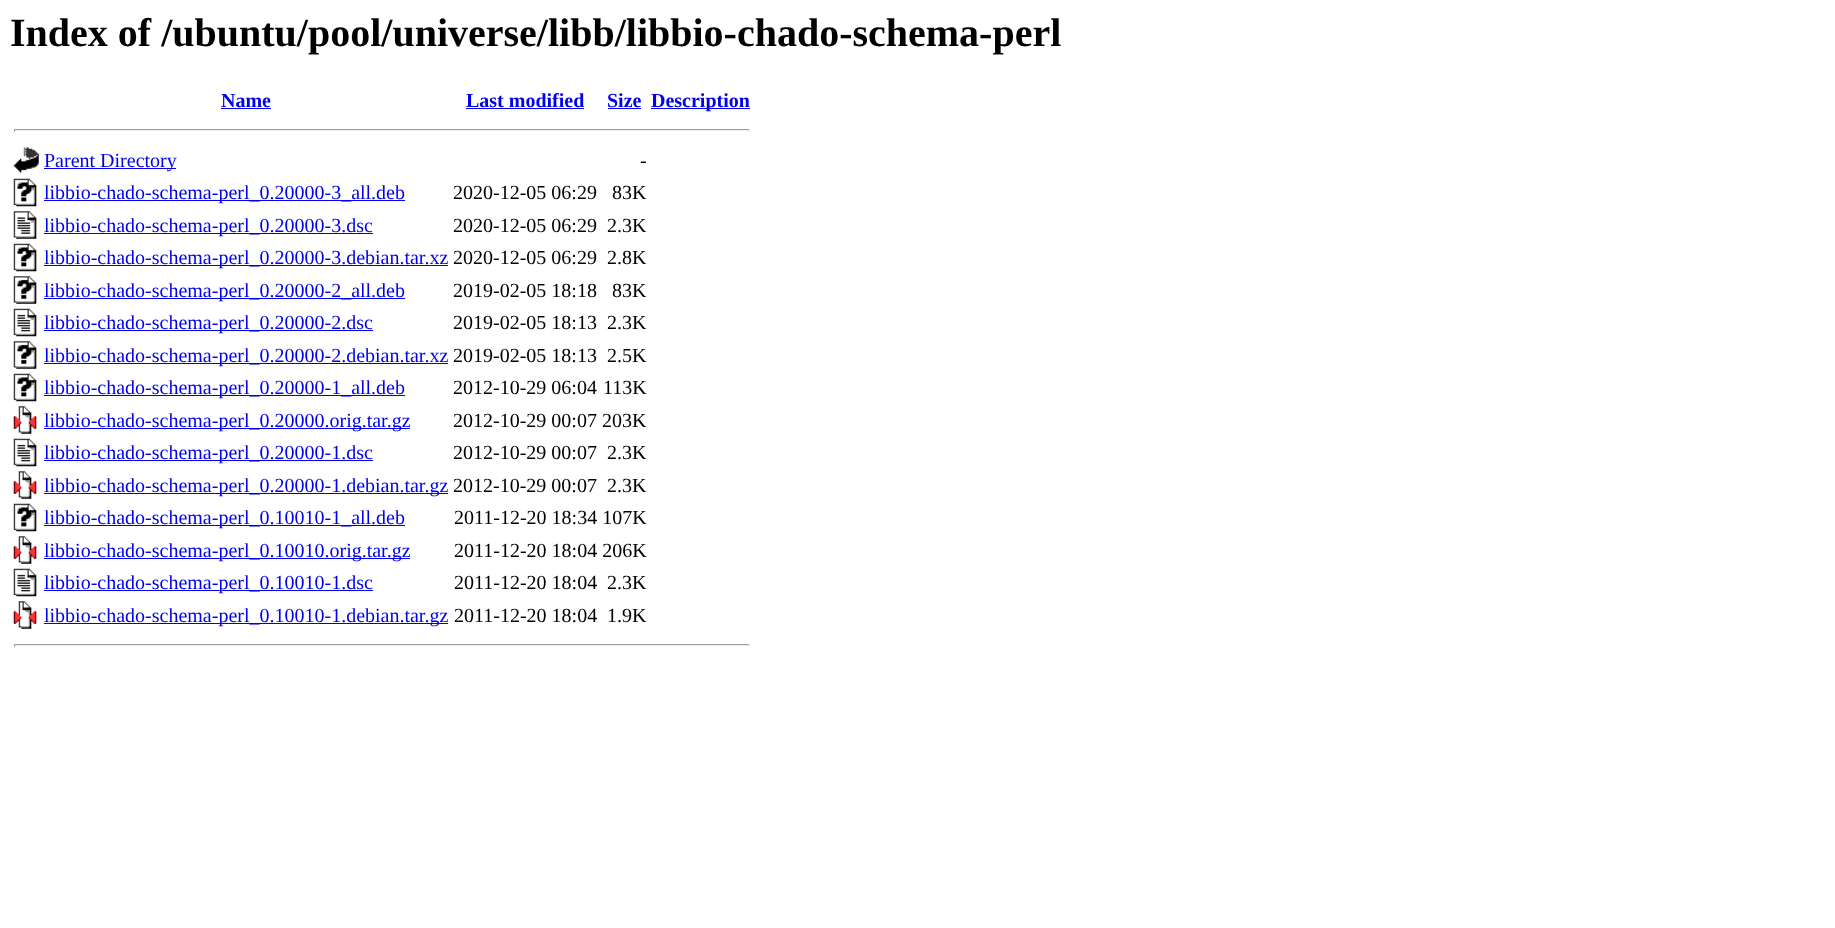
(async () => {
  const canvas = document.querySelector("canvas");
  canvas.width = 1835;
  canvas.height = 928;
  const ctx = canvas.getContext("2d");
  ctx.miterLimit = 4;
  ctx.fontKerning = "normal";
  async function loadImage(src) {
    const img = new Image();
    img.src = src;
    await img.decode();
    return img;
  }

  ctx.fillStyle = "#ffffff";
  ctx.fillRect(0, 0, 1835, 928);
  for (const [x, y, w, h, color] of [
    [221, 108, 50, 1, "#0000ee"],
    [466, 108, 118, 1, "#0000ee"],
    [608, 108, 33, 1, "#0000ee"],
    [651, 108, 99, 1, "#0000ee"],
    [14, 129, 736, 1, "#9f9f9f"],
    [749, 129, 1, 3, "#eeeeee"],
    [14, 130, 736, 1, "#eeeeee"],
    [14, 129, 1, 3, "#9f9f9f"],
  ]) {
    ctx.fillStyle = color;
    ctx.fillRect(x, y, w, h);
  }
  ctx.drawImage(await loadImage("img/1.png"), 13, 147, 26, 26);
  ctx.fillStyle = "#0000ee";
  ctx.fillRect(44, 168, 132, 1);
  ctx.drawImage(await loadImage("img/2.png"), 13, 178, 24, 29);
  ctx.fillRect(44, 200, 361, 1);
  ctx.drawImage(await loadImage("img/3.png"), 13, 211, 24, 28);
  ctx.fillRect(44, 233, 329, 1);
  ctx.drawImage(await loadImage("img/2.png"), 13, 243, 24, 29);
  ctx.fillRect(44, 265, 404, 1);
  ctx.drawImage(await loadImage("img/4.png"), 13, 276, 24, 28);
  ctx.fillRect(44, 298, 361, 1);
  ctx.drawImage(await loadImage("img/5.png"), 13, 308, 24, 29);
  ctx.fillRect(44, 330, 329, 1);
  ctx.drawImage(await loadImage("img/6.png"), 13, 341, 24, 28);
  ctx.fillRect(44, 363, 404, 1);
  ctx.drawImage(await loadImage("img/2.png"), 13, 373, 24, 29);
  ctx.fillRect(44, 395, 361, 1);
  ctx.drawImage(await loadImage("img/7.png"), 13, 406, 24, 28);
  ctx.fillRect(44, 428, 366, 1);
  ctx.drawImage(await loadImage("img/5.png"), 13, 438, 24, 29);
  ctx.fillRect(44, 460, 329, 1);
  ctx.drawImage(await loadImage("img/7.png"), 13, 471, 24, 28);
  ctx.fillRect(44, 493, 404, 1);
  ctx.drawImage(await loadImage("img/2.png"), 13, 503, 24, 29);
  ctx.fillRect(44, 525, 361, 1);
  ctx.drawImage(await loadImage("img/7.png"), 13, 536, 24, 28);
  ctx.fillRect(44, 558, 366, 1);
  ctx.drawImage(await loadImage("img/5.png"), 13, 568, 24, 29);
  ctx.fillRect(44, 590, 329, 1);
  ctx.drawImage(await loadImage("img/7.png"), 13, 601, 24, 28);
  for (const [x, y, w, h, color] of [
    [44, 623, 404, 1, "#0000ee"],
    [14, 644, 736, 1, "#9f9f9f"],
    [749, 644, 1, 3, "#eeeeee"],
    [14, 645, 736, 1, "#eeeeee"],
    [14, 644, 1, 3, "#9f9f9f"],
  ]) {
    ctx.fillStyle = color;
    ctx.fillRect(x, y, w, h);
  }
  ctx.font = "bold 40px Liberation Serif";
  ctx.fillStyle = "#000000";
  ctx.fillText("Index of /ubuntu/pool/universe/libb/libbio-chado-schema-perl", 10, 46);
  ctx.font = "bold 20px Liberation Serif";
  ctx.fillStyle = "#0000ee";
  for (const [text, x, y] of [
    ["Name", 221, 107],
    ["Last modified", 466, 107],
    ["Size", 607, 107],
    ["Description", 651, 107],
  ]) {
    ctx.fillText(text, x, y);
  }
  ctx.font = "20px Liberation Serif";
  ctx.fillText("Parent Directory", 44, 167);
  ctx.fillStyle = "#000000";
  ctx.fillText("-", 640, 167);
  ctx.fillStyle = "#0000ee";
  ctx.fillText("libbio-chado-schema-perl_0.20000-3_all.deb", 44, 199);
  ctx.fillStyle = "#000000";
  ctx.fillText("2020-12-05 06:29", 453, 199);
  ctx.fillText("83K", 612, 199);
  ctx.fillStyle = "#0000ee";
  ctx.fillText("libbio-chado-schema-perl_0.20000-3.dsc", 44, 232);
  ctx.fillStyle = "#000000";
  ctx.fillText("2020-12-05 06:29", 453, 232);
  ctx.fillText("2.3K", 607, 232);
  ctx.fillStyle = "#0000ee";
  ctx.fillText("libbio-chado-schema-perl_0.20000-3.debian.tar.xz", 44, 264);
  ctx.fillStyle = "#000000";
  ctx.fillText("2020-12-05 06:29", 453, 264);
  ctx.fillText("2.8K", 607, 264);
  ctx.fillStyle = "#0000ee";
  ctx.fillText("libbio-chado-schema-perl_0.20000-2_all.deb", 44, 297);
  ctx.fillStyle = "#000000";
  ctx.fillText("2019-02-05 18:18", 453, 297);
  ctx.fillText("83K", 612, 297);
  ctx.fillStyle = "#0000ee";
  ctx.fillText("libbio-chado-schema-perl_0.20000-2.dsc", 44, 329);
  ctx.fillStyle = "#000000";
  ctx.fillText("2019-02-05 18:13", 453, 329);
  ctx.fillText("2.3K", 607, 329);
  ctx.fillStyle = "#0000ee";
  ctx.fillText("libbio-chado-schema-perl_0.20000-2.debian.tar.xz", 44, 362);
  ctx.fillStyle = "#000000";
  ctx.fillText("2019-02-05 18:13", 453, 362);
  ctx.fillText("2.5K", 607, 362);
  ctx.fillStyle = "#0000ee";
  ctx.fillText("libbio-chado-schema-perl_0.20000-1_all.deb", 44, 394);
  ctx.fillStyle = "#000000";
  ctx.fillText("2012-10-29 06:04", 453, 394);
  ctx.fillText("113K", 603, 394);
  ctx.fillStyle = "#0000ee";
  ctx.fillText("libbio-chado-schema-perl_0.20000.orig.tar.gz", 44, 427);
  ctx.fillStyle = "#000000";
  ctx.fillText("2012-10-29 00:07 203K", 453, 427);
  ctx.fillStyle = "#0000ee";
  ctx.fillText("libbio-chado-schema-perl_0.20000-1.dsc", 44, 459);
  ctx.fillStyle = "#000000";
  ctx.fillText("2012-10-29 00:07", 453, 459);
  ctx.fillText("2.3K", 607, 459);
  ctx.fillStyle = "#0000ee";
  ctx.fillText("libbio-chado-schema-perl_0.20000-1.debian.tar.gz", 44, 492);
  ctx.fillStyle = "#000000";
  ctx.fillText("2012-10-29 00:07", 453, 492);
  ctx.fillText("2.3K", 607, 492);
  ctx.fillStyle = "#0000ee";
  ctx.fillText("libbio-chado-schema-perl_0.10010-1_all.deb", 44, 524);
  ctx.fillStyle = "#000000";
  ctx.fillText("2011-12-20 18:34 107K", 454, 524);
  ctx.fillStyle = "#0000ee";
  ctx.fillText("libbio-chado-schema-perl_0.10010.orig.tar.gz", 44, 557);
  ctx.fillStyle = "#000000";
  ctx.fillText("2011-12-20 18:04 206K", 454, 557);
  ctx.fillStyle = "#0000ee";
  ctx.fillText("libbio-chado-schema-perl_0.10010-1.dsc", 44, 589);
  ctx.fillStyle = "#000000";
  ctx.fillText("2011-12-20 18:04", 454, 589);
  ctx.fillText("2.3K", 607, 589);
  ctx.fillStyle = "#0000ee";
  ctx.fillText("libbio-chado-schema-perl_0.10010-1.debian.tar.gz", 44, 622);
  ctx.fillStyle = "#000000";
  ctx.fillText("2011-12-20 18:04", 454, 622);
  ctx.fillText("1.9K", 607, 622);
})();
